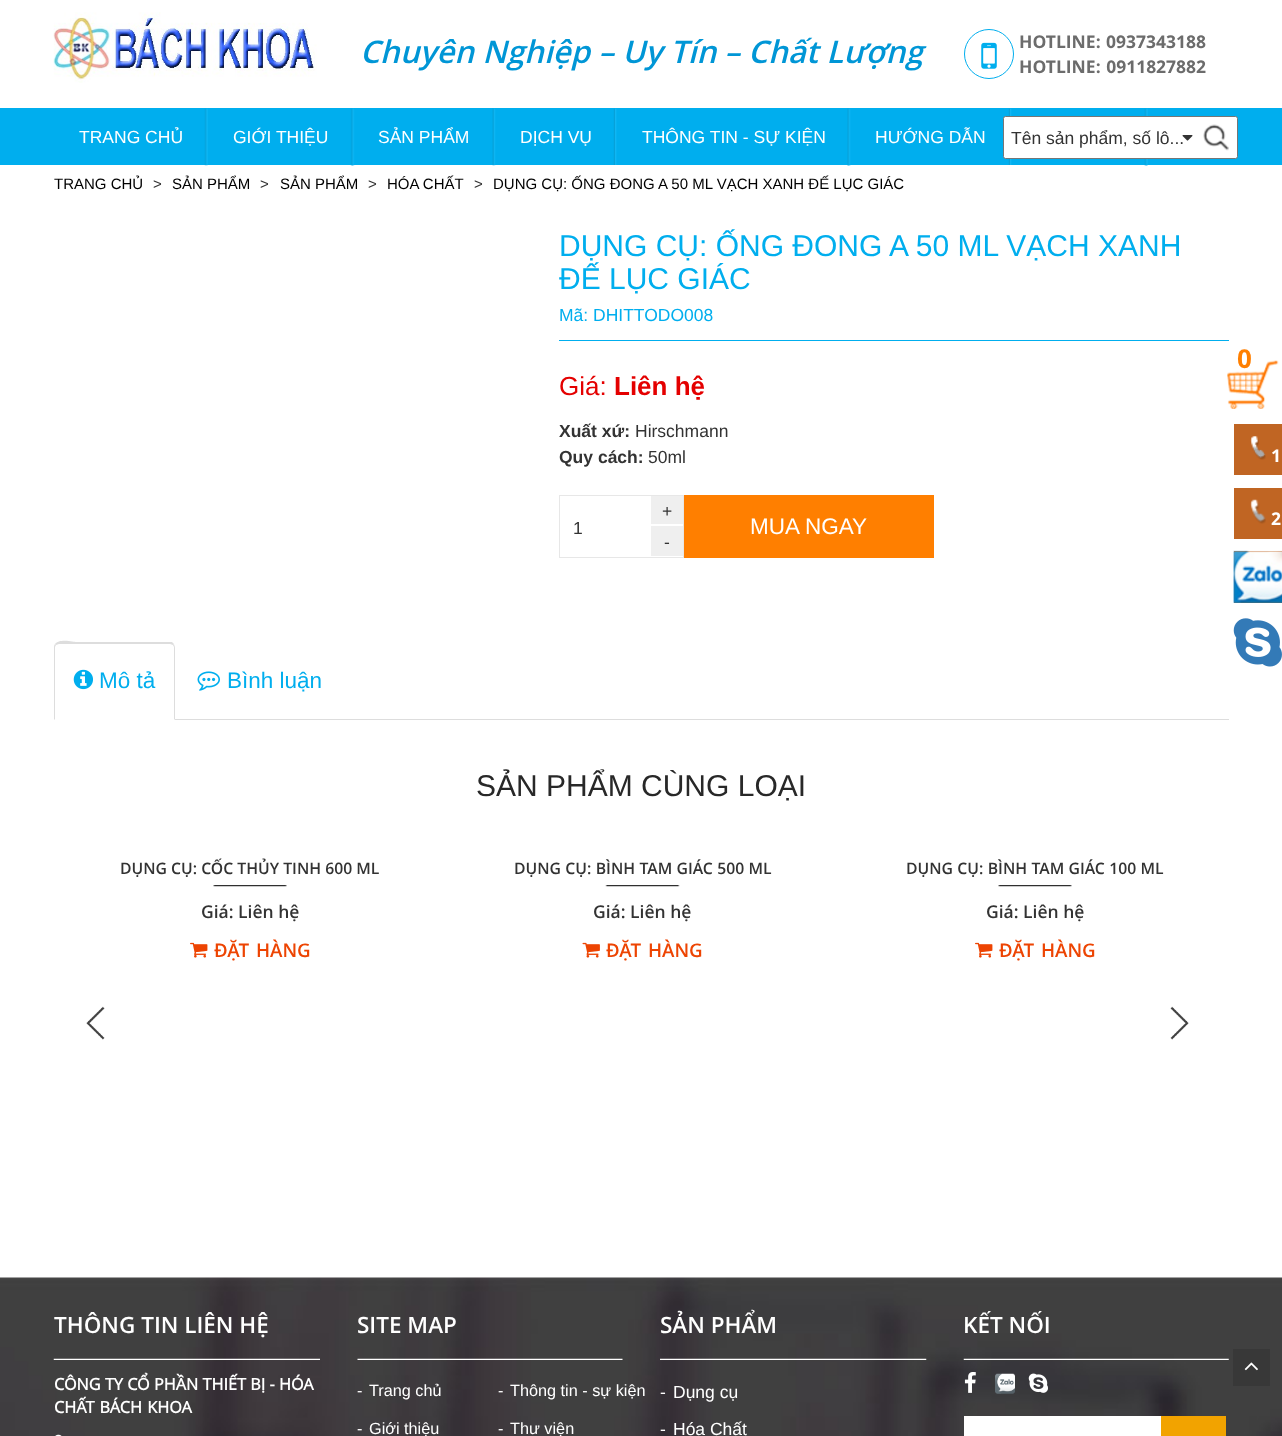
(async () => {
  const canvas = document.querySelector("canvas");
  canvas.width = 1282;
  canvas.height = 1436;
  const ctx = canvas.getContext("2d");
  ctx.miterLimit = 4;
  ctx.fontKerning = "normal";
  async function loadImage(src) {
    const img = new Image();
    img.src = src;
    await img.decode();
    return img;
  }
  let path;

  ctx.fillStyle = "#ffffff";
  ctx.fillRect(0, 0, 1282, 1436);
  ctx.drawImage(await loadImage("img/1.png"), 53, 12, 264, 71);
  ctx.beginPath();
  ctx.arc(989, 54, 24.5, 0, Math.PI * 2);
  ctx.strokeStyle = "#00aeee";
  ctx.stroke();
  ctx.drawImage(await loadImage("img/2.png"), 981, 42, 16, 27);
  ctx.fillStyle = "#00aeee";
  ctx.fillRect(0, 108, 1282, 57);
  ctx.drawImage(await loadImage("img/3.png"), 204, 108, 4, 58);
  ctx.drawImage(await loadImage("img/4.png"), 350, 108, 5, 58);
  ctx.drawImage(await loadImage("img/5.png"), 492, 108, 4, 58);
  ctx.drawImage(await loadImage("img/6.png"), 613, 108, 4, 57);
  ctx.drawImage(await loadImage("img/7.png"), 847, 108, 4, 58);
  ctx.drawImage(await loadImage("img/8.png"), 1008, 108, 4, 57);
  ctx.drawImage(await loadImage("img/9.png"), 1144, 108, 4, 58);
  ctx.fillStyle = "#ffffff";
  ctx.beginPath();
  ctx.roundRect(1003.5, 116.5, 234, 42, 2);
  ctx.fill();
  ctx.strokeStyle = "#767676";
  ctx.stroke();
  ctx.drawImage(await loadImage("img/10.png"), 1203, 124, 26, 27);
  ctx.fillStyle = "#00aeee";
  ctx.fillRect(559, 340, 670, 1);
  ctx.strokeStyle = "#e7e7e7";
  ctx.strokeRect(559.5, 495.5, 124, 62);
  for (const [x, y, w, h, color] of [
    [651, 496, 32, 28, "#efefef"],
    [651, 526, 32, 30, "#efefef"],
    [684, 495, 250, 63, "#ff7f00"],
    [175, 719, 1054, 1, "#dddddd"],
  ]) {
    ctx.fillStyle = color;
    ctx.fillRect(x, y, w, h);
  }
  path = new Path2D("M59 644L56 645L55 644C59 638 75 642 76 642H172L174 644L173 645L170 644Z");
  ctx.fill(path);
  path = new Path2D("M175 720V648C175 646 174 645 174 644L173 645L174 647V719Z");
  ctx.fill(path);
  path = new Path2D("M54 720V648C54 647 54 645 55 644L56 645L55 647V719Z");
  ctx.fill(path);
  ctx.drawImage(await loadImage("img/12.png"), 73, 669, 20, 21);
  ctx.drawImage(await loadImage("img/13.png"), 197, 671, 23, 20);
  ctx.drawImage(await loadImage("img/14.png"), 213, 885, 74, 2);
  ctx.drawImage(await loadImage("img/15.png"), 190, 942, 18, 16);
  ctx.drawImage(await loadImage("img/16.png"), 605, 885, 75, 2);
  ctx.drawImage(await loadImage("img/17.png"), 582, 942, 18, 16);
  ctx.drawImage(await loadImage("img/14.png"), 998, 885, 74, 2);
  ctx.drawImage(await loadImage("img/15.png"), 975, 942, 18, 16);
  ctx.drawImage(await loadImage("img/18.png"), 86, 1006, 19, 34);
  ctx.drawImage(await loadImage("img/19.png"), 1170, 1006, 19, 34);
  ctx.drawImage(await loadImage("img/20.png"), 1227, 360, 52, 49);
  ctx.fillStyle = "#c06523";
  ctx.fillRect(1234, 424, 48, 51);
  ctx.drawImage(await loadImage("img/21.png"), 1250, 436, 16, 24);
  ctx.fillRect(1234, 488, 48, 51);
  ctx.drawImage(await loadImage("img/22.png"), 1250, 499, 16, 25);
  ctx.fillRect(1234, 551, 48, 52);
  ctx.drawImage(await loadImage("img/23.png"), 1233, 550, 49, 53);
  ctx.drawImage(await loadImage("img/24.png"), 1233, 618, 49, 49);
  ctx.drawImage(await loadImage("img/25.png"), 0, 1277, 1282, 159);
  ctx.drawImage(await loadImage("img/26.png"), 53, 1358, 267, 2);
  ctx.drawImage(await loadImage("img/27.png"), 55, 1434, 7, 2);
  ctx.drawImage(await loadImage("img/28.png"), 357, 1358, 266, 2);
  ctx.drawImage(await loadImage("img/29.png"), 660, 1358, 267, 2);
  ctx.drawImage(await loadImage("img/30.png"), 963, 1358, 266, 2);
  ctx.drawImage(await loadImage("img/31.png"), 964, 1372, 12, 21);
  ctx.drawImage(await loadImage("img/32.png"), 995, 1373, 20, 21);
  ctx.drawImage(await loadImage("img/33.png"), 1028, 1373, 20, 20);
  for (const [x, y, w, h, color] of [
    [964, 1416, 197, 20, "#ffffff"],
    [1161, 1416, 65, 20, "#f2a300"],
    [1233, 1349, 37, 37, "#383838"],
  ]) {
    ctx.fillStyle = color;
    ctx.fillRect(x, y, w, h);
  }
  ctx.drawImage(await loadImage("img/34.png"), 1244, 1362, 14, 9);
  ctx.font = "italic 600 31.25px Open Sans";
  ctx.fillStyle = "#0096d6";
  ctx.fillText("Chuyên Nghiệp – Uy Tín – Chất Lượng", 360, 63);
  ctx.font = "bold 17.5px Open Sans";
  ctx.fillStyle = "#6c6c6c";
  ctx.fillText("HOTLINE:", 1019, 48);
  ctx.fillText("0937343188", 1106, 48);
  ctx.wordSpacing = "1px";
  ctx.fillText("HOTLINE: 0911827882", 1019, 73);
  ctx.wordSpacing = "0px";
  ctx.font = "17.5px Liberation Sans";
  ctx.fillStyle = "#ffffff";
  for (const [text, x, y] of [
    ["TRANG CHỦ", 79, 143],
    ["GIỚI THIỆU", 233, 143],
    ["SẢN PHẨM", 378, 143],
    ["DỊCH VỤ", 520, 143],
    ["THÔNG TIN - SỰ KIỆN", 642, 143],
    ["HƯỚNG DẪN", 875, 143],
  ]) {
    ctx.fillText(text, x, y);
  }
  ctx.fillStyle = "#333333";
  ctx.fillText("Tên sản phẩm, số lô...", 1011, 144);
  ctx.drawImage(await loadImage("img/11.png"), 1182, 135, 11, 6);
  ctx.font = "15px Liberation Sans";
  ctx.fillStyle = "#000000";
  ctx.fillText("TRANG CHỦ", 54, 189);
  ctx.fillStyle = "#333333";
  ctx.fillText(">", 153, 189);
  ctx.fillStyle = "#000000";
  ctx.fillText("SẢN PHẨM", 172, 189);
  ctx.fillStyle = "#333333";
  ctx.fillText(">", 260, 189);
  ctx.fillStyle = "#000000";
  ctx.fillText("SẢN PHẨM", 280, 189);
  ctx.fillStyle = "#333333";
  ctx.fillText(">", 368, 189);
  ctx.fillStyle = "#000000";
  ctx.fillText("HÓA CHẤT", 387, 189);
  ctx.fillStyle = "#333333";
  ctx.fillText(">", 474, 189);
  ctx.fillStyle = "#000000";
  ctx.fillText("DỤNG CỤ: ỐNG ĐONG A 50 ML VẠCH XANH ĐẾ LỤC GIÁC", 493, 189);
  ctx.font = "30px Liberation Sans";
  ctx.fillStyle = "#00aeee";
  ctx.fillText("DỤNG CỤ: ỐNG ĐONG A 50 ML VẠCH XANH", 559, 256);
  ctx.fillText("ĐẾ LỤC GIÁC", 559, 289);
  ctx.font = "17.5px Liberation Sans";
  ctx.fillText("Mã: DHITTODO008", 559, 321);
  ctx.font = "26px Liberation Sans";
  ctx.fillStyle = "#e40000";
  ctx.fillText("Giá:", 559, 395);
  ctx.font = "bold 26px Liberation Sans";
  ctx.fillText("Liên hệ", 614, 395);
  ctx.font = "bold 17.5px Liberation Sans";
  ctx.fillStyle = "#333333";
  ctx.fillText("Xuất xứ:", 559, 437);
  ctx.font = "17.5px Liberation Sans";
  ctx.fillText("Hirschmann", 635, 437);
  ctx.font = "bold 17.5px Liberation Sans";
  ctx.fillText("Quy cách:", 559, 463);
  ctx.font = "17.5px Liberation Sans";
  for (const [text, x, y] of [
    ["50ml", 648, 463],
    ["+", 662, 517],
    ["1", 573, 534],
    ["-", 664, 548],
  ]) {
    ctx.fillText(text, x, y);
  }
  ctx.font = "22.5px Liberation Sans";
  ctx.fillStyle = "#ffffff";
  ctx.fillText("MUA NGAY", 750, 534);
  ctx.fillStyle = "#00aeee";
  ctx.fillText("Mô tả", 99, 688);
  ctx.fillText("Bình luận", 227, 688);
  ctx.font = "30px Liberation Sans";
  ctx.fillStyle = "#282828";
  ctx.fillText("SẢN PHẨM CÙNG LOẠI", 476, 796);
  ctx.font = "600 15.75px Open Sans";
  ctx.fillStyle = "#333333";
  ctx.fillText("DỤNG CỤ: CỐC THỦY TINH 600 ML", 120, 874);
  ctx.font = "600 17.5px Open Sans";
  ctx.fillText("Giá: Liên hệ", 201, 918);
  ctx.wordSpacing = "2px";
  ctx.font = "600 18.75px Open Sans";
  ctx.fillStyle = "#ed4402";
  ctx.fillText("ĐẶT HÀNG", 214, 957);
  ctx.wordSpacing = "0.25px";
  ctx.font = "600 15.75px Open Sans";
  ctx.fillStyle = "#333333";
  ctx.fillText("DỤNG CỤ: BÌNH TAM GIÁC 500 ML", 514, 874);
  ctx.wordSpacing = "0px";
  ctx.font = "600 17.5px Open Sans";
  ctx.fillText("Giá: Liên hệ", 593, 918);
  ctx.wordSpacing = "2px";
  ctx.font = "600 18.75px Open Sans";
  ctx.fillStyle = "#ed4402";
  ctx.fillText("ĐẶT HÀNG", 606, 957);
  ctx.wordSpacing = "0.25px";
  ctx.font = "600 15.75px Open Sans";
  ctx.fillStyle = "#333333";
  ctx.fillText("DỤNG CỤ: BÌNH TAM GIÁC 100 ML", 906, 874);
  ctx.wordSpacing = "0px";
  ctx.font = "600 17.5px Open Sans";
  ctx.fillText("Giá: Liên hệ", 986, 918);
  ctx.wordSpacing = "2px";
  ctx.font = "600 18.75px Open Sans";
  ctx.fillStyle = "#ed4402";
  ctx.fillText("ĐẶT HÀNG", 999, 957);
  ctx.wordSpacing = "0px";
  ctx.font = "bold 26px Open Sans";
  ctx.fillStyle = "#ff7f00";
  ctx.fillText("0", 1237, 368);
  ctx.font = "bold 17.5px Open Sans";
  ctx.fillStyle = "#ffffff";
  ctx.fillText("1", 1271, 462);
  ctx.fillText("2", 1271, 525);
  ctx.font = "600 22.5px Open Sans";
  ctx.fillText("THÔNG TIN LIÊN HỆ", 54, 1333);
  ctx.font = "bold 16.25px 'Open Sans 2'";
  ctx.fillText("CÔNG TY CỔ PHẦN THIẾT BỊ - HÓA", 54, 1390);
  ctx.wordSpacing = "1px";
  ctx.fillText("CHẤT BÁCH KHOA", 54, 1413);
  ctx.wordSpacing = "0px";
  ctx.font = "600 22.5px Open Sans";
  ctx.fillText("SITE MAP", 357, 1333);
  ctx.font = "16.25px Liberation Sans";
  for (const [text, x, y] of [
    ["-", 357, 1396],
    ["Trang chủ", 369, 1396],
    ["-", 498, 1396],
    ["Thông tin - sự kiện", 510, 1396],
    ["-", 357, 1434],
    ["Giới thiệu", 369, 1434],
    ["-", 498, 1434],
    ["Thư viện", 510, 1434],
  ]) {
    ctx.fillText(text, x, y);
  }
  ctx.font = "600 22.5px Open Sans";
  ctx.fillText("SẢN PHẨM", 660, 1333);
  ctx.font = "17.5px Liberation Sans";
  for (const [text, x, y] of [
    ["-", 660, 1398],
    ["Dụng cụ", 673, 1398],
    ["-", 660, 1435],
    ["Hóa Chất", 673, 1435],
  ]) {
    ctx.fillText(text, x, y);
  }
  ctx.font = "600 22.5px Open Sans";
  ctx.fillText("KẾT NỐI", 963, 1333);
})();
